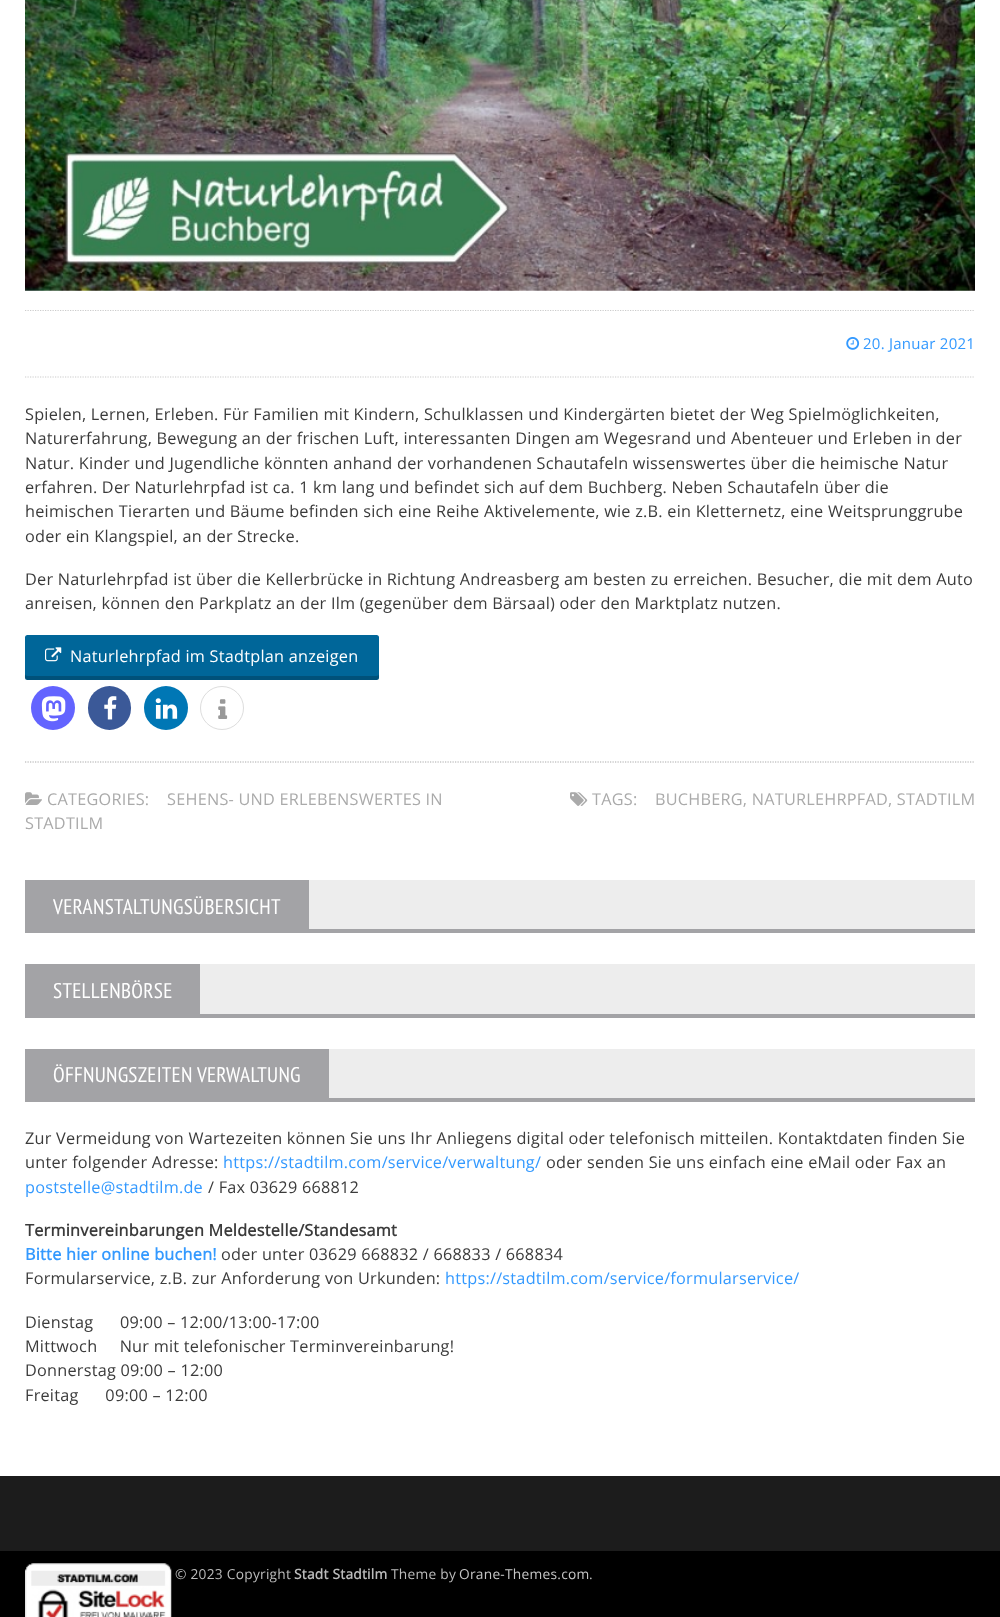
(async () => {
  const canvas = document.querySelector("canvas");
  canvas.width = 1000;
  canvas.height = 1617;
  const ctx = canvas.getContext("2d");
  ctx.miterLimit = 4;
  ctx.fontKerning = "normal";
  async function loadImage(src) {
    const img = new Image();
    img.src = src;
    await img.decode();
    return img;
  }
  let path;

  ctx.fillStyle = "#ffffff";
  ctx.fillRect(0, 0, 1000, 1617);
  ctx.drawImage(await loadImage("img/1.png"), 25, 0, 950, 291);
  path = new Path2D("M25 310.5H975");
  ctx.strokeStyle = "#cccccc";
  ctx.lineWidth = 1.2;
  ctx.setLineDash([1.25, 1.25]);
  ctx.stroke(path);
  path = new Path2D("M25 377H975");
  ctx.stroke(path);
  ctx.drawImage(await loadImage("img/2.png"), 846, 337, 14, 13);
  ctx.fillStyle = "#006699";
  ctx.beginPath();
  ctx.roundRect(25, 635, 354, 45, 2.5);
  ctx.fill();
  ctx.fillStyle = "rgba(0, 0, 0, 0.2)";
  path = new Path2D("M25 674C25 676 24 680 28 680H376C380 680 379 676 379 674C379 675 378 676 376 676H28C26 676 25 675 25 674Z");
  ctx.fill(path);
  ctx.drawImage(await loadImage("img/3.png"), 45, 647, 17, 15);
  ctx.fillStyle = "#6364ff";
  ctx.beginPath();
  ctx.arc(53, 708, 22, 0, Math.PI * 2);
  ctx.fill();
  ctx.drawImage(await loadImage("img/4.png"), 41, 696, 25, 26);
  ctx.fillStyle = "#3b5998";
  ctx.beginPath();
  ctx.roundRect(88, 686, 43, 44, 21.5);
  ctx.fill();
  ctx.drawImage(await loadImage("img/5.png"), 104, 696, 13, 24);
  ctx.fillStyle = "#0077b5";
  ctx.beginPath();
  ctx.arc(166, 708, 22, 0, Math.PI * 2);
  ctx.fill();
  ctx.drawImage(await loadImage("img/6.png"), 155, 698, 23, 21);
  ctx.beginPath();
  ctx.arc(222, 708, 21.5, 0, Math.PI * 2);
  ctx.strokeStyle = "#dddddd";
  ctx.lineWidth = 1;
  ctx.setLineDash([]);
  ctx.stroke();
  ctx.drawImage(await loadImage("img/7.png"), 218, 699, 10, 20);
  path = new Path2D("M25 762H975");
  ctx.strokeStyle = "#aaaaaa";
  ctx.lineWidth = 1.2;
  ctx.setLineDash([1.25, 1.25]);
  ctx.stroke(path);
  ctx.drawImage(await loadImage("img/8.png"), 25, 792, 17, 13);
  ctx.drawImage(await loadImage("img/9.png"), 570, 792, 18, 14);
  for (const [x, y, w, h, color] of [
    [309, 880, 666, 49, "#ededed"],
    [25, 880, 284, 49, "#a3a3a6"],
    [25, 929, 950, 4, "#a3a3a6"],
    [200, 964, 775, 50, "#ededed"],
    [25, 964, 175, 50, "#a3a3a6"],
    [25, 1014, 950, 4, "#a3a3a6"],
    [329, 1049, 646, 49, "#ededed"],
    [25, 1049, 304, 49, "#a3a3a6"],
    [25, 1098, 950, 4, "#a3a3a6"],
    [0, 1476, 1000, 75, "#1c1c1c"],
    [0, 1551, 1000, 66, "#000000"],
  ]) {
    ctx.fillStyle = color;
    ctx.fillRect(x, y, w, h);
  }
  ctx.drawImage(await loadImage("img/10.png"), 25, 1563, 147, 54);
  ctx.letterSpacing = "0.25px";
  ctx.font = "15px Open Sans";
  ctx.fillStyle = "#3399ff";
  ctx.fillText("20. Januar 2021", 863, 349);
  ctx.letterSpacing = "0.24px";
  ctx.font = "16.25px Open Sans";
  ctx.fillStyle = "#3b3b3b";
  for (const [text, x, y] of [
    ["Spielen, Lernen, Erleben. Für Familien mit Kindern, Schulklassen und Kindergärten bietet der Weg Spielmöglichkeiten,", 25, 420],
    ["Naturerfahrung, Bewegung an der frischen Luft, interessanten Dingen am Wegesrand und Abenteuer und Erleben in der", 25, 444],
    ["Natur. Kinder und Jugendliche könnten anhand der vorhandenen Schautafeln wissenswertes über die heimische Natur", 25, 469],
    ["erfahren. Der Naturlehrpfad ist ca. 1 km lang und befindet sich auf dem Buchberg. Neben Schautafeln über die", 25, 493],
    ["heimischen Tierarten und Bäume befinden sich eine Reihe Aktivelemente, wie z.B. ein Kletternetz, eine Weitsprunggrube", 25, 517],
    ["oder ein Klangspiel, an der Strecke.", 25, 542],
    ["Der Naturlehrpfad ist über die Kellerbrücke in Richtung Andreasberg am besten zu erreichen. Besucher, die mit dem Auto", 25, 585],
    ["anreisen, können den Parkplatz an der Ilm (gegenüber dem Bärsaal) oder den Marktplatz nutzen.", 25, 609],
  ]) {
    ctx.fillText(text, x, y);
  }
  ctx.fillStyle = "#ffffff";
  ctx.fillText("Naturlehrpfad im Stadtplan anzeigen", 70, 662);
  ctx.fillStyle = "#aaaaaa";
  for (const [text, x, y] of [
    ["CATEGORIES:", 47, 805],
    ["SEHENS- UND ERLEBENSWERTES IN", 167, 805],
    ["STADTILM", 25, 829],
    ["TAGS:", 592, 805],
    ["BUCHBERG, NATURLEHRPFAD, STADTILM", 655, 805],
  ]) {
    ctx.fillText(text, x, y);
  }
  ctx.letterSpacing = "0.3px";
  ctx.font = "21.25px PT Sans Narrow";
  ctx.fillStyle = "#ffffff";
  ctx.fillText("VERANSTALTUNGSÜBERSICHT", 53, 914);
  ctx.fillText("STELLENBÖRSE", 53, 998);
  ctx.letterSpacing = "0.25px";
  ctx.fillText("ÖFFNUNGSZEITEN VERWALTUNG", 53, 1082);
  ctx.letterSpacing = "0.24px";
  ctx.font = "16.25px Open Sans";
  ctx.fillStyle = "#3b3b3b";
  ctx.fillText("Zur Vermeidung von Wartezeiten können Sie uns Ihr Anliegens digital oder telefonisch mitteilen. Kontaktdaten finden Sie", 25, 1144);
  ctx.fillText("unter folgender Adresse:", 25, 1168);
  ctx.fillStyle = "#3399ff";
  ctx.fillText("https://stadtilm.com/service/verwaltung/", 223, 1168);
  ctx.fillStyle = "#3b3b3b";
  ctx.fillText("oder senden Sie uns einfach eine eMail oder Fax an", 546, 1168);
  ctx.fillStyle = "#3399ff";
  ctx.fillText("poststelle@stadtilm.de", 25, 1193);
  ctx.fillStyle = "#3b3b3b";
  ctx.fillText("/ Fax 03629 668812", 208, 1193);
  ctx.font = "bold 16.25px Open Sans";
  ctx.fillText("Terminvereinbarungen Meldestelle/Standesamt", 25, 1236);
  ctx.fillStyle = "#3399ff";
  ctx.fillText("Bitte hier online buchen!", 25, 1260);
  ctx.font = "16.25px Open Sans";
  ctx.fillStyle = "#3b3b3b";
  ctx.fillText("oder unter 03629 668832 / 668833 / 668834", 221, 1260);
  ctx.fillText("Formularservice, z.B. zur Anforderung von Urkunden:", 25, 1284);
  ctx.fillStyle = "#3399ff";
  ctx.fillText("https://stadtilm.com/service/formularservice/", 445, 1284);
  ctx.fillStyle = "#3b3b3b";
  for (const [text, x, y] of [
    ["Dienstag      09:00 – 12:00/13:00-17:00", 25, 1328],
    ["Mittwoch     Nur mit telefonischer Terminvereinbarung!", 25, 1352],
    ["Donnerstag 09:00 – 12:00", 25, 1376],
    ["Freitag      09:00 – 12:00", 25, 1401],
  ]) {
    ctx.fillText(text, x, y);
  }
  ctx.letterSpacing = "0.25px";
  ctx.font = "13.75px Open Sans";
  ctx.fillStyle = "#bbbbbb";
  ctx.fillText("© 2023 Copyright", 175, 1579);
  ctx.font = "bold 13.75px Open Sans";
  ctx.fillText("Stadt Stadtilm", 294, 1579);
  ctx.font = "13.75px Open Sans";
  ctx.fillText("Theme by", 391, 1579);
  ctx.fillStyle = "#c5c5c5";
  ctx.fillText("Orane-Themes.com", 459, 1579);
  ctx.fillStyle = "#bbbbbb";
  ctx.fillText(".", 589, 1579);
})();
